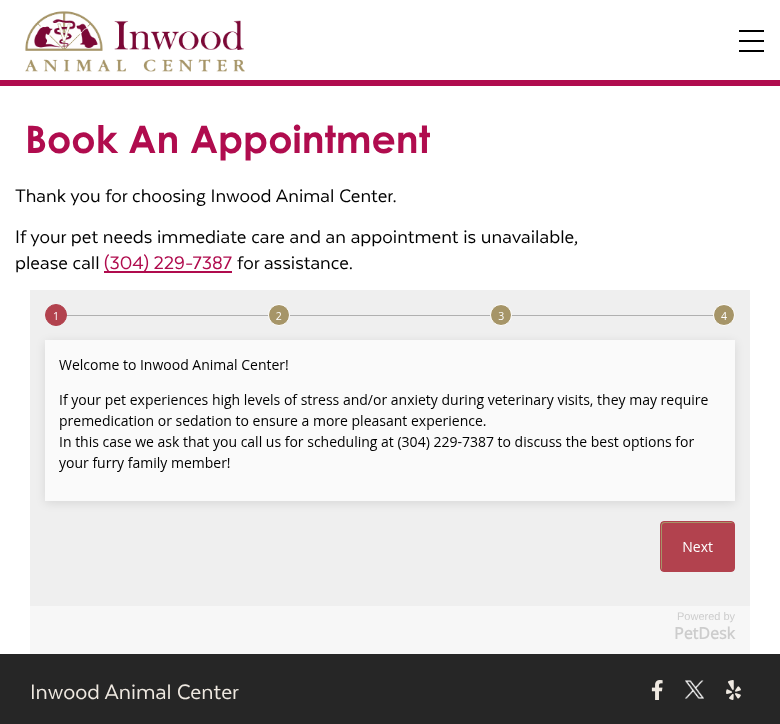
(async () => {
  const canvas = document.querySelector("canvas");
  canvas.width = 780;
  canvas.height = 724;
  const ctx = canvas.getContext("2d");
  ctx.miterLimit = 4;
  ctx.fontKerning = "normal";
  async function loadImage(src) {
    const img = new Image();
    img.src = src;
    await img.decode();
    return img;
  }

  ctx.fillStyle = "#ffffff";
  ctx.fillRect(0, 0, 780, 724);
  ctx.fillStyle = "#b00c4e";
  ctx.fillRect(0, 80, 780, 6);
  ctx.drawImage(await loadImage("img/1.png"), 25, 11, 220, 61);
  for (const [x, y, w, h, color] of [
    [739, 40, 25, 2, "#000000"],
    [739, 30, 25, 2, "#000000"],
    [739, 50, 25, 2, "#000000"],
    [104, 271, 128, 2, "#b00c4e"],
    [30, 606, 720, 48, "#f7f7f7"],
  ]) {
    ctx.fillStyle = color;
    ctx.fillRect(x, y, w, h);
  }
  ctx.drawImage(await loadImage("img/2.png"), 30, 290, 720, 316);
  ctx.fillStyle = "#262626";
  ctx.fillRect(0, 654, 780, 70);
  ctx.drawImage(await loadImage("img/3.png"), 651, 680, 12, 20);
  ctx.drawImage(await loadImage("img/4.png"), 685, 680, 19, 19);
  ctx.drawImage(await loadImage("img/5.png"), 726, 680, 15, 20);
  ctx.font = "bold 38px Century Gothic";
  ctx.fillStyle = "#b00c4e";
  ctx.fillText("Book An Appointment", 25, 153);
  ctx.font = "21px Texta";
  ctx.fillStyle = "#000000";
  for (const [text, x, y] of [
    ["Thank you for choosing Inwood Animal Center.", 15, 202],
    ["If your pet needs immediate care and an appointment is unavailable,", 15, 243],
    ["please call", 15, 269],
  ]) {
    ctx.fillText(text, x, y);
  }
  ctx.fillStyle = "#b00c4e";
  ctx.fillText("(304) 229-7387", 104, 269);
  ctx.fillStyle = "#000000";
  ctx.fillText("for assistance.", 237, 269);
  ctx.font = "11px Liberation Sans";
  ctx.fillStyle = "#cdcdcd";
  ctx.fillText("Powered by", 677, 620);
  ctx.font = "bold 16px Open Sans";
  ctx.fillText("PetDesk", 674, 639);
  ctx.font = "24px Texta";
  ctx.fillStyle = "#efe9e1";
  ctx.fillText("Inwood Animal Center", 30, 699);
})();
